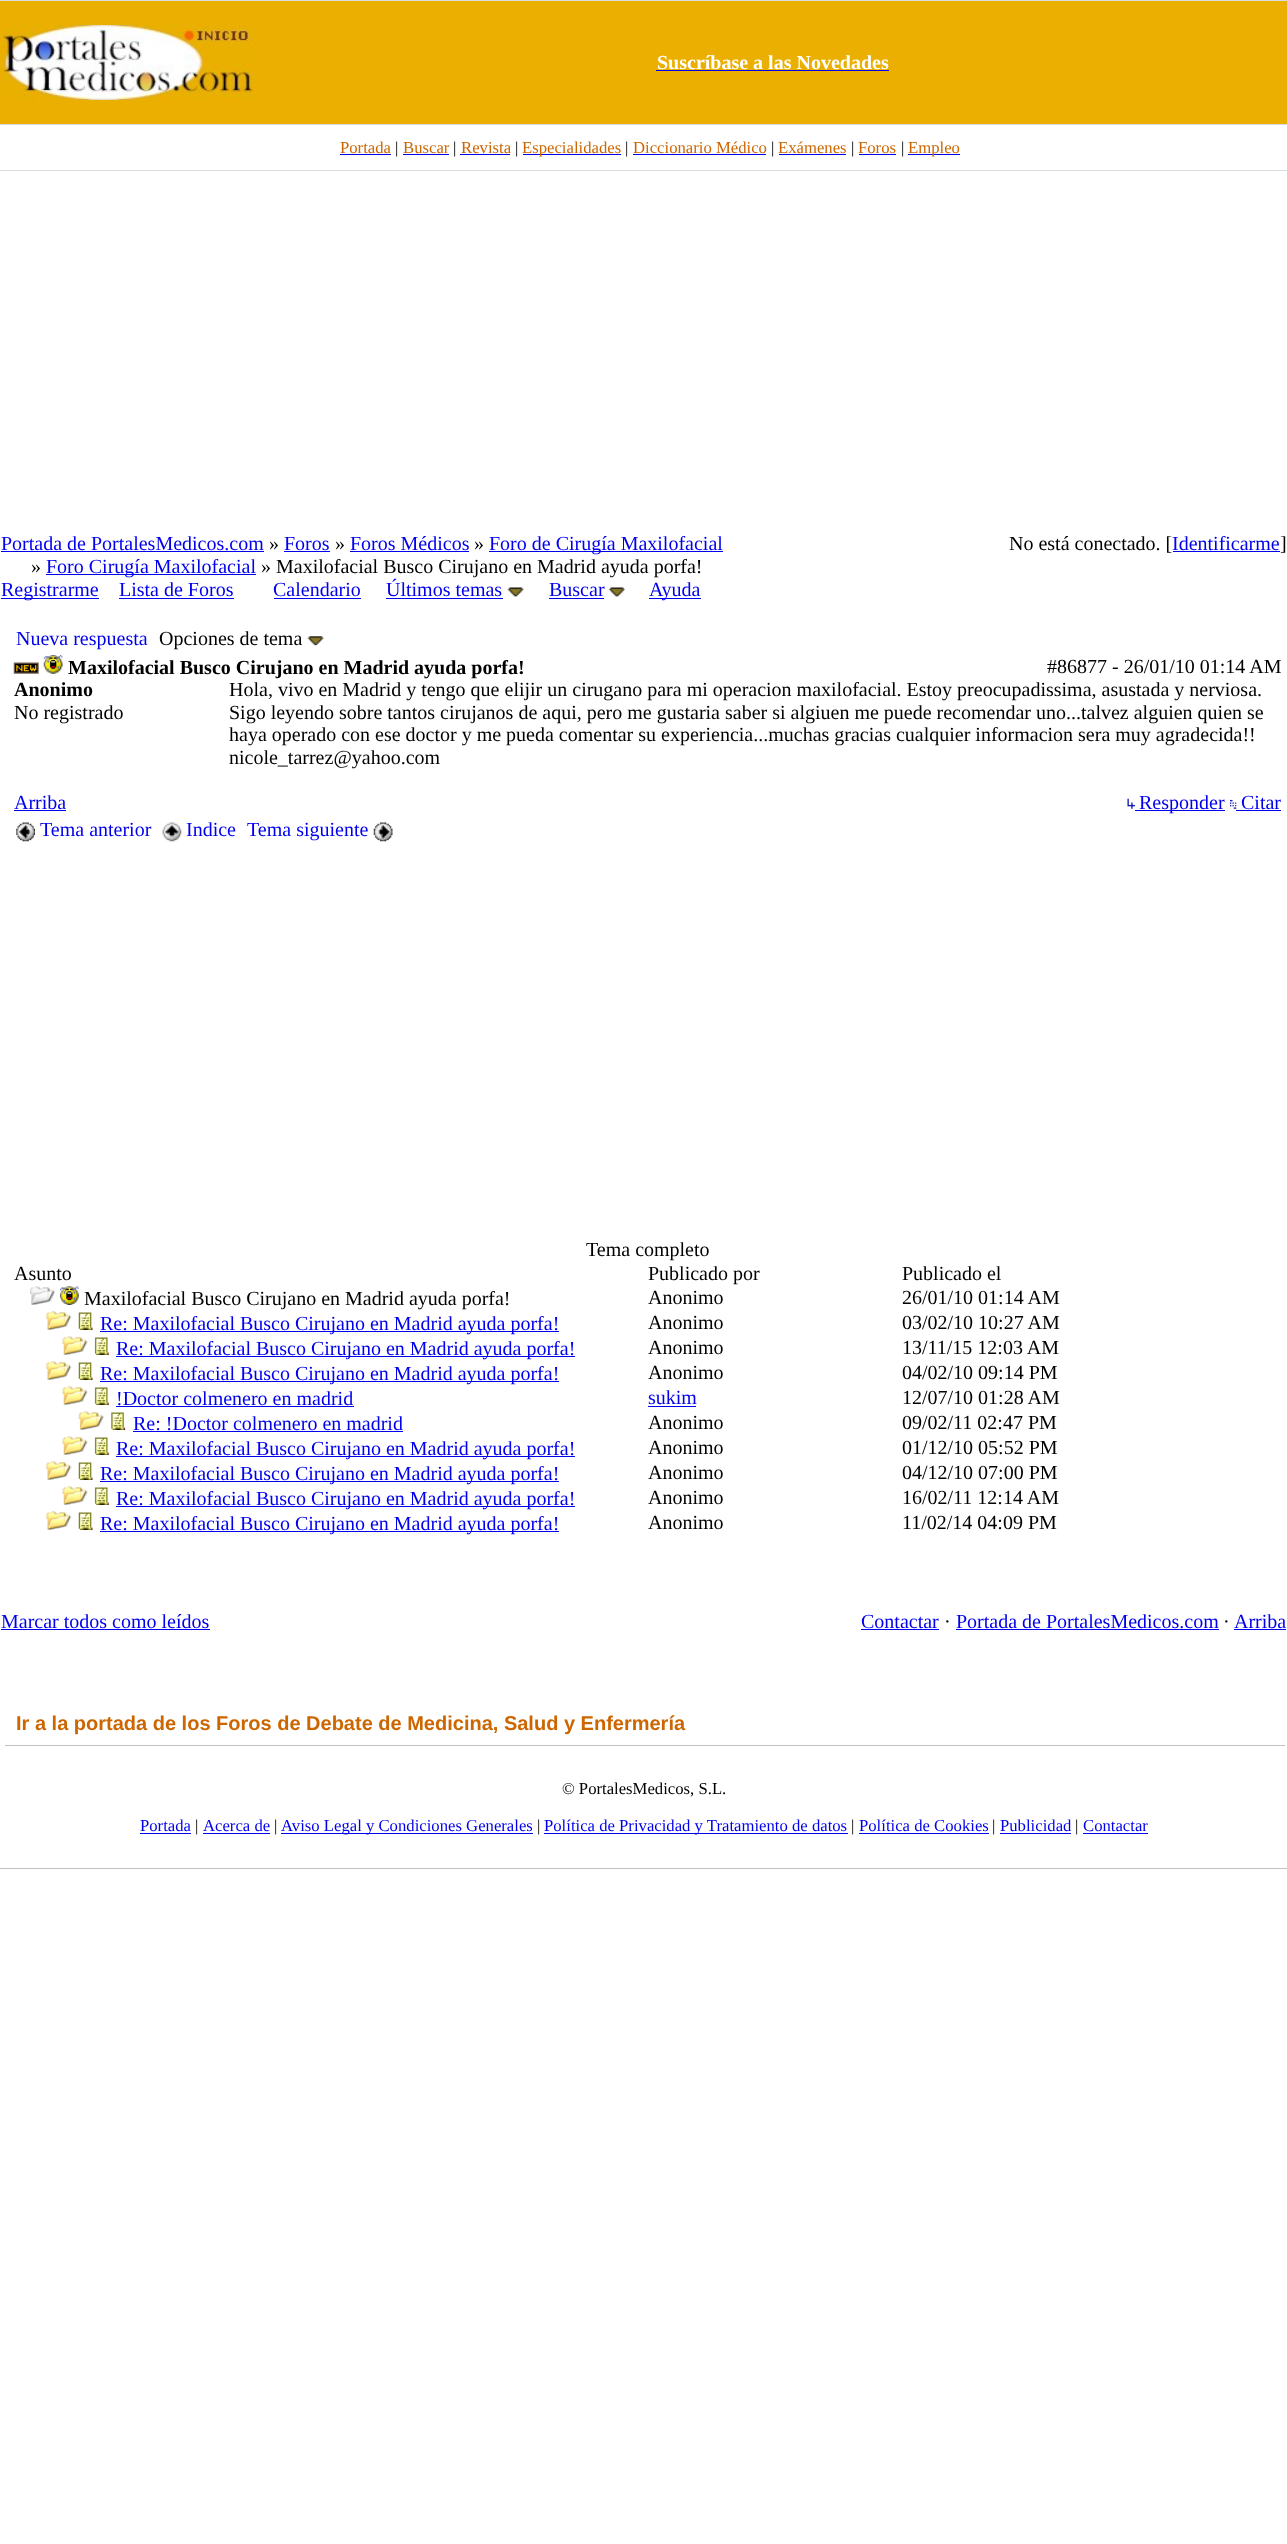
(async () => {
  const canvas = document.querySelector("canvas");
  canvas.width = 1287;
  canvas.height = 2544;
  const ctx = canvas.getContext("2d");
  ctx.miterLimit = 4;
  ctx.fontKerning = "normal";
  async function loadImage(src) {
    const img = new Image();
    img.src = src;
    await img.decode();
    return img;
  }

  ctx.fillStyle = "#ffffff";
  ctx.fillRect(0, 0, 1287, 2544);
  for (const [x, y, w, h, color] of [
    [0, 1, 1287, 123, "#eaaf00"],
    [0, 0, 1287, 1, "#d9dcdf"],
    [0, 124, 1287, 1, "#d9dcdf"],
  ]) {
    ctx.fillStyle = color;
    ctx.fillRect(x, y, w, h);
  }
  ctx.drawImage(await loadImage("img/1.png"), 3, 25, 251, 75);
  for (const [x, y, w, h, color] of [
    [656, 70, 233, 1, "#0000ee"],
    [0, 170, 1287, 1, "#d9dcdf"],
    [340, 154, 51, 1, "#0000ee"],
    [403, 154, 46, 1, "#0000ee"],
    [460, 154, 50, 1, "#0000ee"],
    [523, 154, 98, 1, "#0000ee"],
    [633, 154, 133, 1, "#0000ee"],
    [779, 154, 67, 1, "#0000ee"],
    [859, 154, 37, 1, "#0000ee"],
    [908, 154, 52, 1, "#0000ee"],
    [1, 551, 263, 1, "#0000ee"],
    [284, 551, 46, 1, "#0000ee"],
    [350, 551, 119, 1, "#0000ee"],
    [489, 551, 234, 1, "#0000ee"],
    [46, 574, 210, 1, "#0000ee"],
    [1173, 551, 107, 1, "#0000ee"],
    [1, 598, 98, 1, "#0000ee"],
    [119, 598, 115, 1, "#0000ee"],
    [274, 598, 87, 1, "#0000ee"],
    [386, 598, 117, 1, "#0000ee"],
  ]) {
    ctx.fillStyle = color;
    ctx.fillRect(x, y, w, h);
  }
  ctx.drawImage(await loadImage("img/2.png"), 507, 587, 17, 10);
  ctx.fillRect(549, 598, 55, 1);
  ctx.drawImage(await loadImage("img/3.png"), 608, 587, 17, 10);
  ctx.fillRect(649, 598, 52, 1);
  ctx.drawImage(await loadImage("img/4.png"), 307, 636, 17, 10);
  ctx.drawImage(await loadImage("img/5.png"), 13, 662, 26, 12);
  ctx.drawImage(await loadImage("img/6.png"), 43, 655, 20, 19);
  ctx.fillRect(14, 810, 52, 1);
  ctx.drawImage(await loadImage("img/7.png"), 1127, 798, 8, 11);
  ctx.fillRect(1135, 810, 90, 1);
  ctx.drawImage(await loadImage("img/8.png"), 1230, 799, 7, 10);
  ctx.fillRect(1236, 810, 45, 1);
  ctx.drawImage(await loadImage("img/9.png"), 16, 822, 19, 20);
  ctx.drawImage(await loadImage("img/10.png"), 162, 822, 20, 20);
  ctx.drawImage(await loadImage("img/11.png"), 373, 822, 20, 20);
  ctx.drawImage(await loadImage("img/12.png"), 30, 1286, 25, 19);
  ctx.drawImage(await loadImage("img/13.png"), 60, 1286, 19, 19);
  ctx.drawImage(await loadImage("img/14.png"), 46, 1311, 26, 19);
  ctx.drawImage(await loadImage("img/15.png"), 78, 1312, 15, 18);
  ctx.fillRect(100, 1331, 459, 1);
  ctx.drawImage(await loadImage("img/16.png"), 62, 1336, 26, 19);
  ctx.drawImage(await loadImage("img/17.png"), 94, 1337, 15, 18);
  ctx.fillRect(116, 1356, 459, 1);
  ctx.drawImage(await loadImage("img/14.png"), 46, 1361, 26, 19);
  ctx.drawImage(await loadImage("img/15.png"), 78, 1362, 15, 18);
  ctx.fillRect(100, 1381, 459, 1);
  ctx.drawImage(await loadImage("img/16.png"), 62, 1386, 26, 19);
  ctx.drawImage(await loadImage("img/17.png"), 94, 1387, 15, 18);
  ctx.fillRect(116, 1406, 238, 1);
  ctx.fillRect(648, 1406, 48, 1);
  ctx.drawImage(await loadImage("img/18.png"), 78, 1411, 26, 19);
  ctx.drawImage(await loadImage("img/19.png"), 111, 1412, 15, 18);
  ctx.fillRect(133, 1431, 270, 1);
  ctx.drawImage(await loadImage("img/16.png"), 62, 1436, 26, 19);
  ctx.drawImage(await loadImage("img/17.png"), 94, 1437, 15, 18);
  ctx.fillRect(116, 1456, 459, 1);
  ctx.drawImage(await loadImage("img/14.png"), 46, 1461, 26, 19);
  ctx.drawImage(await loadImage("img/15.png"), 78, 1462, 15, 18);
  ctx.fillRect(100, 1481, 459, 1);
  ctx.drawImage(await loadImage("img/16.png"), 62, 1486, 26, 19);
  ctx.drawImage(await loadImage("img/17.png"), 94, 1487, 15, 18);
  ctx.fillRect(116, 1506, 459, 1);
  ctx.drawImage(await loadImage("img/14.png"), 46, 1511, 26, 19);
  ctx.drawImage(await loadImage("img/15.png"), 78, 1512, 15, 18);
  for (const [x, y, w, h, color] of [
    [100, 1531, 459, 1, "#0000ee"],
    [1, 1629, 209, 1, "#0000ee"],
    [861, 1629, 78, 1, "#0000ee"],
    [956, 1629, 263, 1, "#0000ee"],
    [1234, 1629, 52, 1, "#0000ee"],
    [5, 1745, 1280, 1, "#c0c0c0"],
    [140, 1833, 51, 1, "#0000ee"],
    [203, 1833, 67, 1, "#0000ee"],
    [281, 1833, 252, 1, "#0000ee"],
    [544, 1833, 304, 1, "#0000ee"],
    [859, 1833, 130, 1, "#0000ee"],
    [1000, 1833, 71, 1, "#0000ee"],
    [1083, 1833, 65, 1, "#0000ee"],
    [0, 1868, 1287, 1, "#c0c0c0"],
  ]) {
    ctx.fillStyle = color;
    ctx.fillRect(x, y, w, h);
  }
  ctx.font = "bold 20px Liberation Serif";
  ctx.fillStyle = "#ffffff";
  ctx.fillText("Suscríbase a las Novedades", 657, 69);
  ctx.font = "16.7px Liberation Serif";
  ctx.fillStyle = "#cc6600";
  ctx.fillText("Portada", 340, 153);
  ctx.fillStyle = "#000000";
  ctx.fillText("|", 395, 153);
  ctx.fillStyle = "#cc6600";
  ctx.fillText("Buscar", 403, 153);
  ctx.fillStyle = "#000000";
  ctx.fillText("|", 453, 153);
  ctx.fillStyle = "#cc6600";
  ctx.fillText("Revista", 461, 153);
  ctx.fillStyle = "#000000";
  ctx.fillText("|", 515, 153);
  ctx.fillStyle = "#cc6600";
  ctx.fillText("Especialidades", 522, 153);
  ctx.fillStyle = "#000000";
  ctx.fillText("|", 625, 153);
  ctx.fillStyle = "#cc6600";
  ctx.fillText("Diccionario Médico", 633, 153);
  ctx.fillStyle = "#000000";
  ctx.fillText("|", 771, 153);
  ctx.fillStyle = "#cc6600";
  ctx.fillText("Exámenes", 778, 153);
  ctx.fillStyle = "#000000";
  ctx.fillText("|", 851, 153);
  ctx.fillStyle = "#cc6600";
  ctx.fillText("Foros", 858, 153);
  ctx.fillStyle = "#000000";
  ctx.fillText("|", 901, 153);
  ctx.fillStyle = "#cc6600";
  ctx.fillText("Empleo", 908, 153);
  ctx.font = "20px Liberation Serif";
  ctx.fillStyle = "#0000ee";
  ctx.fillText("Portada de PortalesMedicos.com", 1, 550);
  ctx.fillStyle = "#000000";
  ctx.fillText("»", 269, 550);
  ctx.fillStyle = "#0000ee";
  ctx.fillText("Foros", 284, 550);
  ctx.fillStyle = "#000000";
  ctx.fillText("»", 335, 550);
  ctx.fillStyle = "#0000ee";
  ctx.fillText("Foros Médicos", 350, 550);
  ctx.fillStyle = "#000000";
  ctx.fillText("»", 474, 550);
  ctx.fillStyle = "#0000ee";
  ctx.fillText("Foro de Cirugía Maxilofacial", 489, 550);
  ctx.fillStyle = "#000000";
  ctx.fillText("»", 31, 573);
  ctx.fillStyle = "#0000ee";
  ctx.fillText("Foro Cirugía Maxilofacial", 46, 573);
  ctx.fillStyle = "#000000";
  ctx.fillText("» Maxilofacial Busco Cirujano en Madrid ayuda porfa!", 261, 573);
  ctx.fillText("No está conectado. [", 1009, 550);
  ctx.fillStyle = "#0000ee";
  ctx.fillText("Identificarme", 1172, 550);
  ctx.fillStyle = "#000000";
  ctx.fillText("]", 1280, 550);
  ctx.fillStyle = "#0000ee";
  for (const [text, x, y] of [
    ["Registrarme", 1, 596],
    ["Lista de Foros", 119, 596],
    ["Calendario", 273, 596],
    ["Últimos temas", 386, 596],
    ["Buscar", 549, 596],
    ["Ayuda", 649, 596],
    ["Nueva respuesta", 16, 645],
  ]) {
    ctx.fillText(text, x, y);
  }
  ctx.fillStyle = "#000000";
  ctx.fillText("Opciones de tema", 159, 645);
  ctx.font = "bold 20px Liberation Serif";
  ctx.fillText("Maxilofacial Busco Cirujano en Madrid ayuda porfa!", 68, 674);
  ctx.font = "20px Liberation Serif";
  ctx.fillText("#86877 - 26/01/10 01:14 AM", 1047, 673);
  ctx.font = "bold 20px Liberation Serif";
  ctx.fillText("Anonimo", 14, 696);
  ctx.font = "20px Liberation Serif";
  for (const [text, x, y] of [
    ["No registrado", 14, 719],
    ["Hola, vivo en Madrid y tengo que elijir un cirugano para mi operacion maxilofacial. Estoy preocupadissima, asustada y nerviosa.", 229, 696],
    ["Sigo leyendo sobre tantos cirujanos de aqui, pero me gustaria saber si algiuen me puede recomendar uno...talvez alguien quien se", 229, 719],
    ["haya operado con ese doctor y me pueda comentar su experiencia...muchas gracias cualquier informacion sera muy agradecida!!", 229, 741],
    ["nicole_tarrez@yahoo.com", 229, 764],
  ]) {
    ctx.fillText(text, x, y);
  }
  ctx.fillStyle = "#0000ee";
  for (const [text, x, y] of [
    ["Arriba", 14, 809],
    ["Responder", 1139, 809],
    ["Citar", 1241, 809],
    ["Tema anterior", 40, 836],
    ["Indice", 186, 836],
    ["Tema siguiente", 247, 836],
  ]) {
    ctx.fillText(text, x, y);
  }
  ctx.fillStyle = "#000000";
  for (const [text, x, y] of [
    ["Tema completo", 586, 1256],
    ["Asunto", 14, 1280],
    ["Publicado por", 648, 1280],
    ["Publicado el", 902, 1280],
    ["Maxilofacial Busco Cirujano en Madrid ayuda porfa!", 84, 1305],
    ["Anonimo", 648, 1304],
    ["26/01/10 01:14 AM", 902, 1304],
  ]) {
    ctx.fillText(text, x, y);
  }
  ctx.fillStyle = "#0000ee";
  ctx.fillText("Re: Maxilofacial Busco Cirujano en Madrid ayuda porfa!", 100, 1330);
  ctx.fillStyle = "#000000";
  ctx.fillText("Anonimo", 648, 1329);
  ctx.fillText("03/02/10 10:27 AM", 902, 1329);
  ctx.fillStyle = "#0000ee";
  ctx.fillText("Re: Maxilofacial Busco Cirujano en Madrid ayuda porfa!", 116, 1355);
  ctx.fillStyle = "#000000";
  ctx.fillText("Anonimo", 648, 1354);
  ctx.fillText("13/11/15 12:03 AM", 902, 1354);
  ctx.fillStyle = "#0000ee";
  ctx.fillText("Re: Maxilofacial Busco Cirujano en Madrid ayuda porfa!", 100, 1380);
  ctx.fillStyle = "#000000";
  ctx.fillText("Anonimo", 648, 1379);
  ctx.fillText("04/02/10 09:14 PM", 902, 1379);
  ctx.fillStyle = "#0000ee";
  ctx.fillText("!Doctor colmenero en madrid", 116, 1405);
  ctx.fillText("sukim", 648, 1404);
  ctx.fillStyle = "#000000";
  ctx.fillText("12/07/10 01:28 AM", 902, 1404);
  ctx.fillStyle = "#0000ee";
  ctx.fillText("Re: !Doctor colmenero en madrid", 133, 1430);
  ctx.fillStyle = "#000000";
  ctx.fillText("Anonimo", 648, 1429);
  ctx.fillText("09/02/11 02:47 PM", 902, 1429);
  ctx.fillStyle = "#0000ee";
  ctx.fillText("Re: Maxilofacial Busco Cirujano en Madrid ayuda porfa!", 116, 1455);
  ctx.fillStyle = "#000000";
  ctx.fillText("Anonimo", 648, 1454);
  ctx.fillText("01/12/10 05:52 PM", 902, 1454);
  ctx.fillStyle = "#0000ee";
  ctx.fillText("Re: Maxilofacial Busco Cirujano en Madrid ayuda porfa!", 100, 1480);
  ctx.fillStyle = "#000000";
  ctx.fillText("Anonimo", 648, 1479);
  ctx.fillText("04/12/10 07:00 PM", 902, 1479);
  ctx.fillStyle = "#0000ee";
  ctx.fillText("Re: Maxilofacial Busco Cirujano en Madrid ayuda porfa!", 116, 1505);
  ctx.fillStyle = "#000000";
  ctx.fillText("Anonimo", 648, 1504);
  ctx.fillText("16/02/11 12:14 AM", 902, 1504);
  ctx.fillStyle = "#0000ee";
  ctx.fillText("Re: Maxilofacial Busco Cirujano en Madrid ayuda porfa!", 100, 1530);
  ctx.fillStyle = "#000000";
  ctx.fillText("Anonimo", 648, 1529);
  ctx.fillText("11/02/14 04:09 PM", 902, 1529);
  ctx.fillStyle = "#0000ee";
  ctx.fillText("Marcar todos como leídos", 1, 1628);
  ctx.fillText("Contactar", 861, 1628);
  ctx.fillStyle = "#000000";
  ctx.fillText("·", 944, 1628);
  ctx.fillStyle = "#0000ee";
  ctx.fillText("Portada de PortalesMedicos.com", 956, 1628);
  ctx.fillStyle = "#000000";
  ctx.fillText("·", 1223, 1628);
  ctx.fillStyle = "#0000ee";
  ctx.fillText("Arriba", 1234, 1628);
  ctx.font = "bold 20px Liberation Sans";
  ctx.fillStyle = "#cc6600";
  ctx.fillText("Ir a la portada de los Foros de Debate de Medicina, Salud y Enfermería", 16, 1730);
  ctx.font = "16.7px Liberation Serif";
  ctx.fillStyle = "#000000";
  ctx.fillText("© PortalesMedicos, S.L.", 562, 1794);
  ctx.fillStyle = "#0000ee";
  ctx.fillText("Portada", 140, 1831);
  ctx.fillStyle = "#000000";
  ctx.fillText("|", 195, 1831);
  ctx.fillStyle = "#0000ee";
  ctx.fillText("Acerca de", 203, 1831);
  ctx.fillStyle = "#000000";
  ctx.fillText("|", 274, 1831);
  ctx.fillStyle = "#0000ee";
  ctx.fillText("Aviso Legal y Condiciones Generales", 281, 1831);
  ctx.fillStyle = "#000000";
  ctx.fillText("|", 537, 1831);
  ctx.fillStyle = "#0000ee";
  ctx.fillText("Política de Privacidad y Tratamiento de datos", 544, 1831);
  ctx.fillStyle = "#000000";
  ctx.fillText("|", 851, 1831);
  ctx.fillStyle = "#0000ee";
  ctx.fillText("Política de Cookies", 859, 1831);
  ctx.fillStyle = "#000000";
  ctx.fillText("|", 992, 1831);
  ctx.fillStyle = "#0000ee";
  ctx.fillText("Publicidad", 1000, 1831);
  ctx.fillStyle = "#000000";
  ctx.fillText("|", 1075, 1831);
  ctx.fillStyle = "#0000ee";
  ctx.fillText("Contactar", 1083, 1831);
})();
